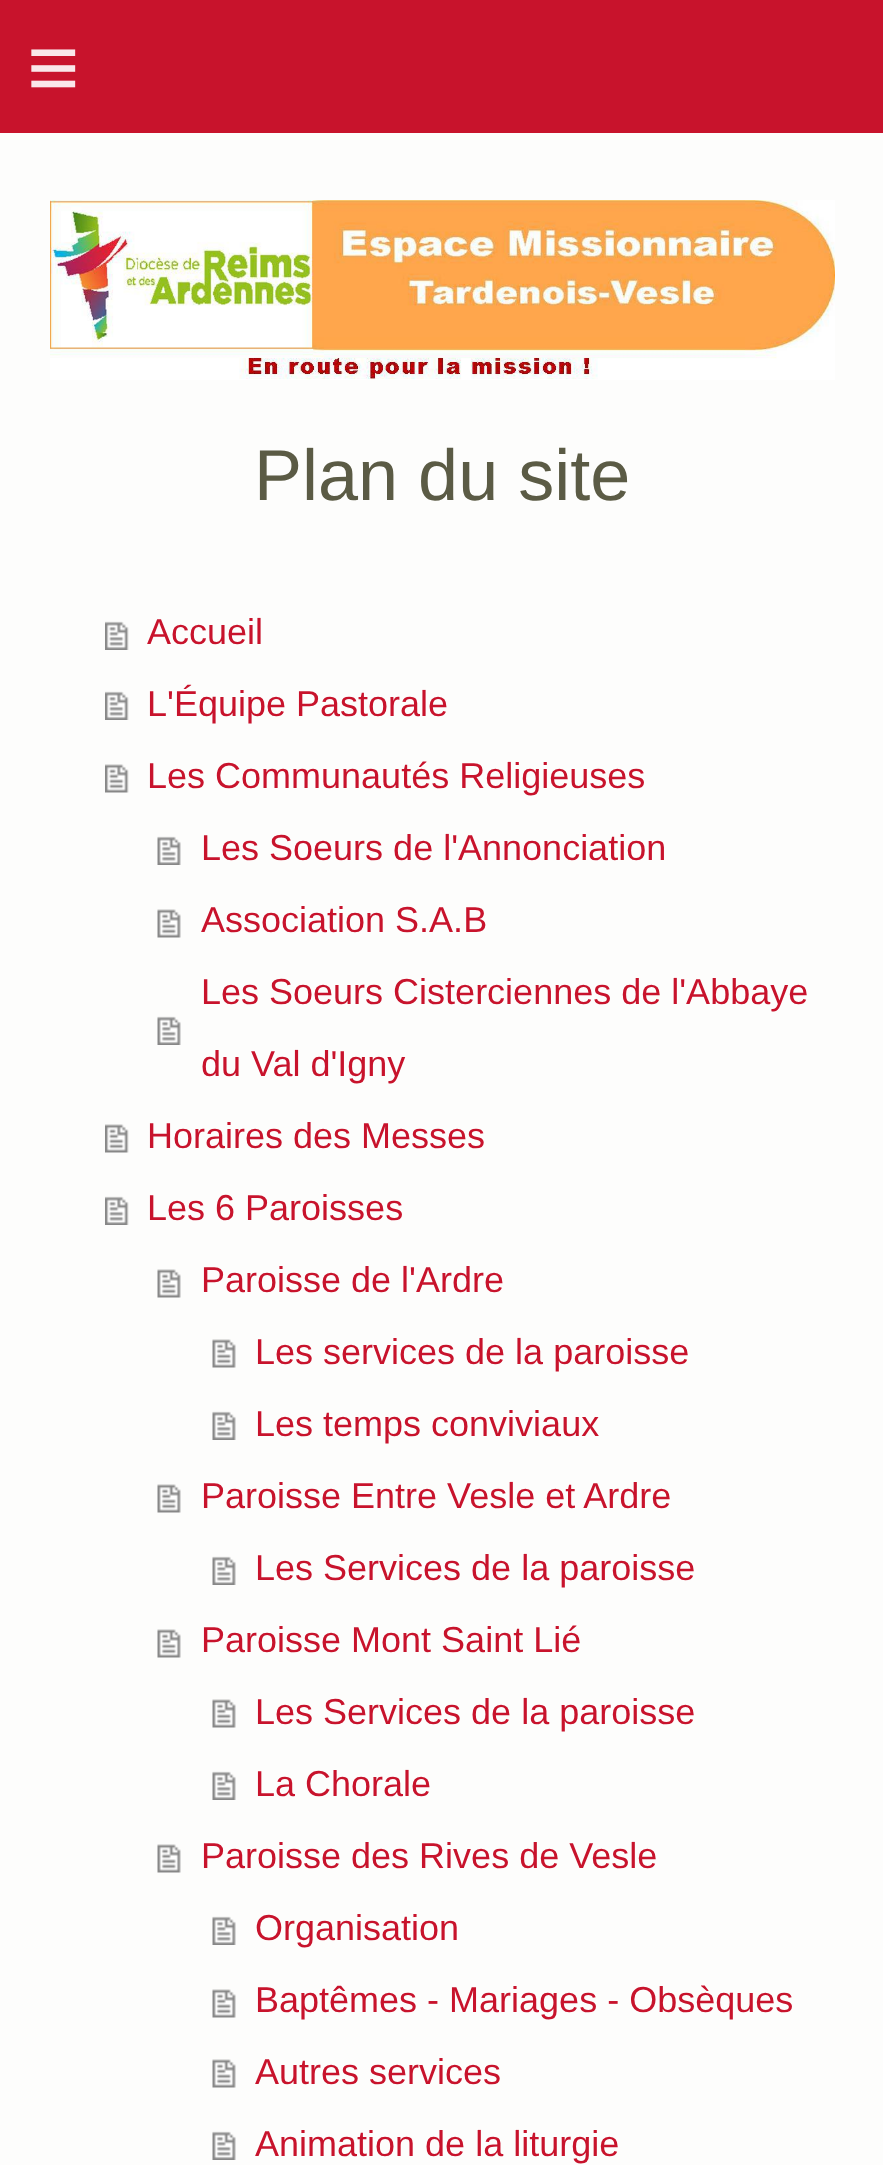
(async () => {
  const canvas = document.querySelector("canvas");
  canvas.width = 883;
  canvas.height = 2165;
  const ctx = canvas.getContext("2d");
  ctx.miterLimit = 4;
  ctx.fontKerning = "normal";
  async function loadImage(src) {
    const img = new Image();
    img.src = src;
    await img.decode();
    return img;
  }

  ctx.fillStyle = "#fdfdfc";
  ctx.fillRect(0, 0, 883, 2165);
  ctx.fillStyle = "#c8132c";
  ctx.fillRect(0, 0, 883, 133);
  ctx.drawImage(await loadImage("img/1.png"), 50, 200, 785, 180);
  ctx.drawImage(await loadImage("img/2.png"), 105, 621, 24, 29);
  ctx.drawImage(await loadImage("img/2.png"), 105, 691, 24, 29);
  ctx.drawImage(await loadImage("img/3.png"), 105, 764, 24, 29);
  ctx.drawImage(await loadImage("img/4.png"), 157, 836, 24, 29);
  ctx.drawImage(await loadImage("img/5.png"), 157, 909, 24, 29);
  ctx.drawImage(await loadImage("img/4.png"), 157, 1016, 24, 29);
  ctx.drawImage(await loadImage("img/3.png"), 105, 1124, 24, 29);
  ctx.drawImage(await loadImage("img/2.png"), 105, 1196, 24, 29);
  ctx.drawImage(await loadImage("img/5.png"), 157, 1269, 24, 29);
  ctx.drawImage(await loadImage("img/5.png"), 212, 1339, 24, 29);
  ctx.drawImage(await loadImage("img/4.png"), 212, 1411, 24, 29);
  ctx.drawImage(await loadImage("img/5.png"), 157, 1484, 24, 29);
  ctx.drawImage(await loadImage("img/6.png"), 212, 1556, 24, 29);
  ctx.drawImage(await loadImage("img/5.png"), 157, 1629, 24, 29);
  ctx.drawImage(await loadImage("img/5.png"), 212, 1699, 24, 29);
  ctx.drawImage(await loadImage("img/4.png"), 212, 1771, 24, 29);
  ctx.drawImage(await loadImage("img/7.png"), 157, 1844, 24, 29);
  ctx.drawImage(await loadImage("img/4.png"), 212, 1916, 24, 29);
  ctx.drawImage(await loadImage("img/5.png"), 212, 1989, 24, 29);
  ctx.drawImage(await loadImage("img/5.png"), 212, 2059, 24, 29);
  ctx.drawImage(await loadImage("img/4.png"), 212, 2131, 24, 29);
  ctx.letterSpacing = "26px";
  ctx.font = "90px Liberation Sans";
  ctx.fillStyle = "#fae7ea";
  ctx.fillText("≡", 27, 98);
  ctx.letterSpacing = "0px";
  ctx.font = "72px Liberation Sans";
  ctx.fillStyle = "#5b5b45";
  ctx.fillText("Plan du site", 254, 500);
  ctx.font = "36px Liberation Sans";
  ctx.fillStyle = "#c8132c";
  for (const [text, x, y] of [
    ["Accueil", 147, 644],
    ["L'Équipe Pastorale", 147, 716],
    ["Les Communautés Religieuses", 147, 788],
    ["Les Soeurs de l'Annonciation", 201, 860],
    ["Association S.A.B", 201, 932],
    ["Les Soeurs Cisterciennes de l'Abbaye", 201, 1004],
    ["du Val d'Igny", 201, 1076],
    ["Horaires des Messes", 147, 1148],
    ["Les 6 Paroisses", 147, 1220],
    ["Paroisse de l'Ardre", 201, 1292],
    ["Les services de la paroisse", 255, 1364],
    ["Les temps conviviaux", 255, 1436],
    ["Paroisse Entre Vesle et Ardre", 201, 1508],
    ["Les Services de la paroisse", 255, 1580],
    ["Paroisse Mont Saint Lié", 201, 1652],
    ["Les Services de la paroisse", 255, 1724],
    ["La Chorale", 255, 1796],
    ["Paroisse des Rives de Vesle", 201, 1868],
    ["Organisation", 255, 1940],
    ["Baptêmes - Mariages - Obsèques", 255, 2012],
    ["Autres services", 255, 2084],
    ["Animation de la liturgie", 255, 2156],
  ]) {
    ctx.fillText(text, x, y);
  }
})();
